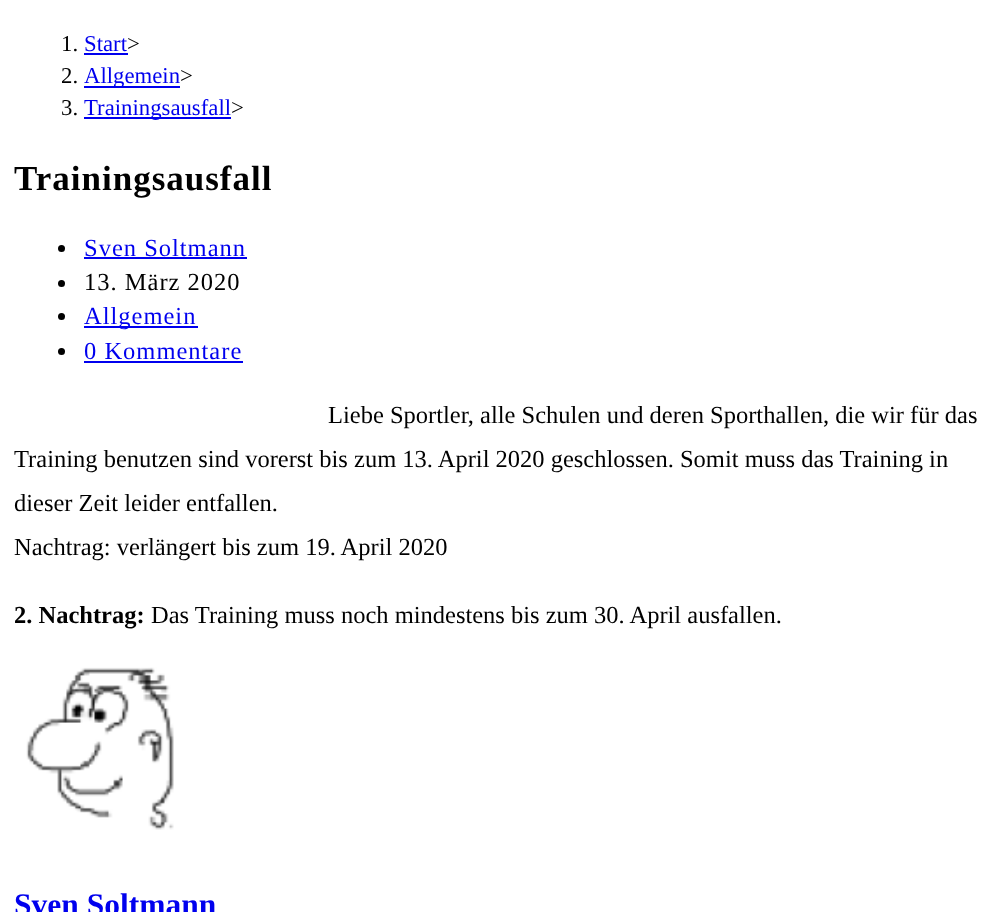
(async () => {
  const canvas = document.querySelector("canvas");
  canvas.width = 1003;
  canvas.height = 912;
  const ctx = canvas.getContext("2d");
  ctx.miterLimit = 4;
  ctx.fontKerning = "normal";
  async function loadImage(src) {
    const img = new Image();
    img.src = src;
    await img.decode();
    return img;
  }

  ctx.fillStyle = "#ffffff";
  ctx.fillRect(0, 0, 1003, 912);
  for (const [x, y, w, h, color] of [
    [84, 53, 44, 2, "#0000ee"],
    [84, 86, 96, 2, "#0000ee"],
    [84, 117, 147, 2, "#0000ee"],
  ]) {
    ctx.fillStyle = color;
    ctx.fillRect(x, y, w, h);
  }
  ctx.fillStyle = "#000000";
  ctx.beginPath();
  ctx.arc(61.5, 248.5, 3.5, 0, Math.PI * 2);
  ctx.fill();
  ctx.fillStyle = "#0000ee";
  ctx.fillRect(84, 257, 163, 2);
  ctx.fillStyle = "#000000";
  ctx.beginPath();
  ctx.arc(61.5, 283.5, 3.5, 0, Math.PI * 2);
  ctx.fill();
  ctx.beginPath();
  ctx.arc(61.5, 316.5, 3.5, 0, Math.PI * 2);
  ctx.fill();
  ctx.fillStyle = "#0000ee";
  ctx.fillRect(84, 326, 114, 2);
  ctx.fillStyle = "#000000";
  ctx.beginPath();
  ctx.arc(61.5, 351.5, 3.5, 0, Math.PI * 2);
  ctx.fill();
  ctx.fillStyle = "#0000ee";
  ctx.fillRect(84, 361, 159, 2);
  ctx.drawImage(await loadImage("img/1.png"), 26, 667, 148, 163);
  ctx.font = "22.75px Liberation Serif";
  ctx.fillStyle = "#000000";
  ctx.fillText("1.", 61, 51);
  ctx.fillStyle = "#0000ee";
  ctx.fillText("Start", 84, 51);
  ctx.fillStyle = "#000000";
  ctx.fillText(">", 127, 51);
  ctx.fillText("2.", 61, 83);
  ctx.fillStyle = "#0000ee";
  ctx.fillText("Allgemein", 84, 83);
  ctx.fillStyle = "#000000";
  ctx.fillText(">", 180, 83);
  ctx.fillText("3.", 61, 115);
  ctx.fillStyle = "#0000ee";
  ctx.fillText("Trainingsausfall", 84, 115);
  ctx.fillStyle = "#000000";
  ctx.fillText(">", 231, 115);
  ctx.letterSpacing = "1px";
  ctx.font = "bold 35px Liberation Serif";
  ctx.fillText("Trainingsausfall", 14, 190);
  ctx.font = "24.5px Liberation Serif";
  ctx.fillStyle = "#0000ee";
  ctx.fillText("Sven Soltmann", 84, 256);
  ctx.fillStyle = "#000000";
  ctx.fillText("13. März 2020", 84, 290);
  ctx.fillStyle = "#0000ee";
  ctx.fillText("Allgemein", 84, 324);
  ctx.fillText("0 Kommentare", 84, 359);
  ctx.letterSpacing = "0px";
  ctx.fillStyle = "#000000";
  for (const [text, x, y] of [
    ["Liebe Sportler, alle Schulen und deren Sporthallen, die wir für das", 328, 423],
    ["Training benutzen sind vorerst bis zum 13. April 2020 geschlossen. Somit muss das Training in", 14, 467],
    ["dieser Zeit leider entfallen.", 14, 511],
    ["Nachtrag: verlängert bis zum 19. April 2020", 14, 555],
  ]) {
    ctx.fillText(text, x, y);
  }
  ctx.font = "bold 24.5px Liberation Serif";
  ctx.fillText("2. Nachtrag:", 14, 623);
  ctx.font = "24.5px Liberation Serif";
  ctx.fillText("Das Training muss noch mindestens bis zum 30. April ausfallen.", 151, 623);
  ctx.font = "bold 31.5px Liberation Serif";
  ctx.fillStyle = "#0000ee";
  ctx.fillText("Sven Soltmann", 14, 915);
})();
